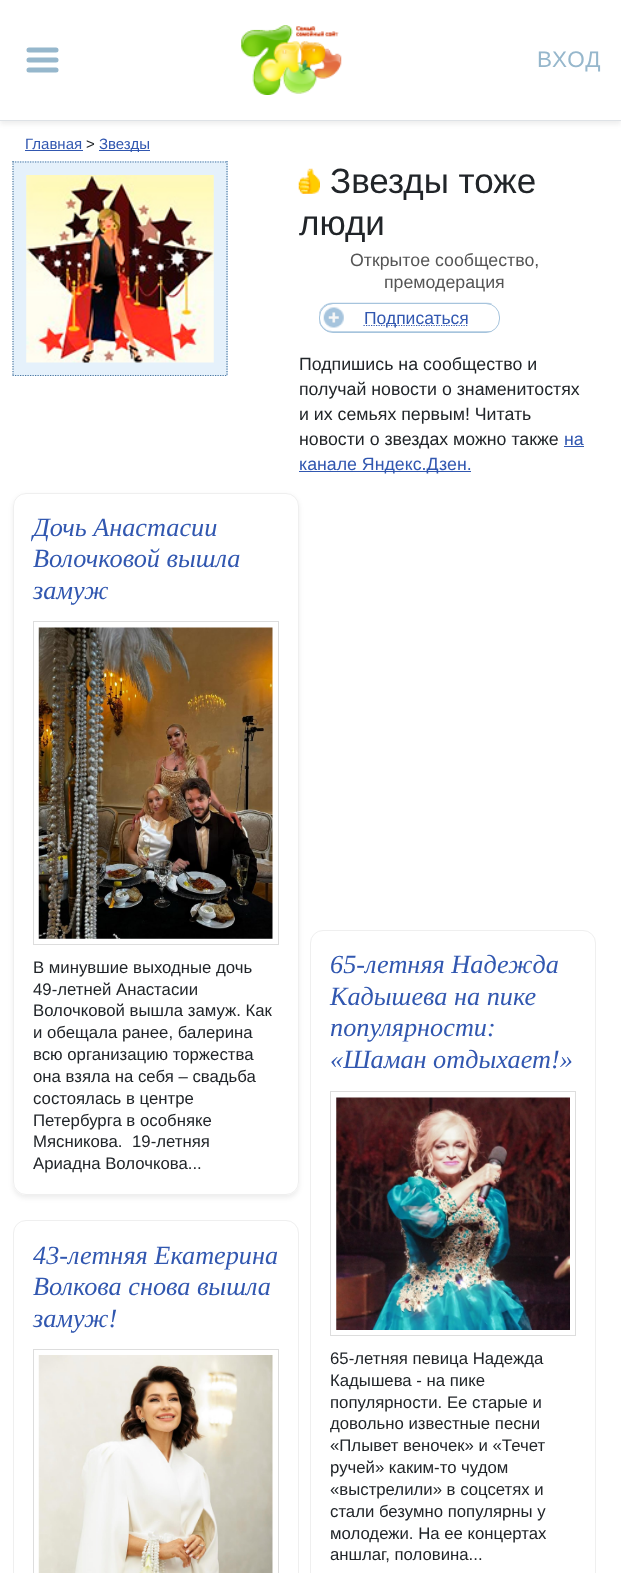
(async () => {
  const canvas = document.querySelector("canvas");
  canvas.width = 621;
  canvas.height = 1573;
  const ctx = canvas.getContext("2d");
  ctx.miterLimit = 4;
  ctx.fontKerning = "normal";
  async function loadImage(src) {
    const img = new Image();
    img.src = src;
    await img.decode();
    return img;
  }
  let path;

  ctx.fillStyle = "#ffffff";
  ctx.fillRect(0, 0, 621, 1573);
  ctx.fillStyle = "rgba(0, 0, 0, 0.07)";
  ctx.filter = "blur(2.5px)";
  ctx.beginPath();
  ctx.rect(0, 3, 621, 121);
  ctx.fill();
  ctx.filter = "none";
  ctx.fillStyle = "#ffffff";
  ctx.fillRect(0, 0, 621, 120);
  ctx.fillStyle = "#dee2e6";
  ctx.fillRect(0, 120, 621, 1);
  path = new Path2D("M29 50H56M29 60H56M29 70H56");
  ctx.strokeStyle = "#96b7cc";
  ctx.lineWidth = 5;
  ctx.lineCap = "round";
  ctx.stroke(path);
  ctx.drawImage(await loadImage("img/1.png"), 241, 25, 101, 70);
  for (const [x, y, w, h, color] of [
    [25, 150, 58, 1, "#3157b0"],
    [99, 150, 51, 1, "#3157b0"],
    [13, 161, 215, 215, "#e5f1fb"],
  ]) {
    ctx.fillStyle = color;
    ctx.fillRect(x, y, w, h);
  }
  path = new Path2D("M12.5 162H227.5");
  ctx.strokeStyle = "#4a78a3";
  ctx.lineWidth = 1.2;
  ctx.lineCap = "butt";
  ctx.setLineDash([1.25, 1.25]);
  ctx.stroke(path);
  path = new Path2D("M227 161V376");
  ctx.stroke(path);
  path = new Path2D("M12.5 375.5H227.5");
  ctx.stroke(path);
  path = new Path2D("M13 161V376");
  ctx.stroke(path);
  ctx.drawImage(await loadImage("img/2.png"), 26, 175, 188, 188);
  ctx.drawImage(await loadImage("img/3.png"), 298, 168, 22, 26);
  ctx.drawImage(await loadImage("img/4.png"), 319, 302, 173, 31);
  ctx.beginPath();
  ctx.roundRect(319.5, 303.5, 180, 29, 13.5);
  ctx.strokeStyle = "#a6c4dd";
  ctx.lineWidth = 1;
  ctx.setLineDash([]);
  ctx.stroke();
  path = new Path2D("M363.5 325.5H468.5");
  ctx.strokeStyle = "#3157b0";
  ctx.lineWidth = 1.2;
  ctx.setLineDash([1.25, 1.25]);
  ctx.stroke(path);
  ctx.fillStyle = "#3157b0";
  ctx.fillRect(564, 446, 20, 1);
  ctx.fillRect(299, 471, 172, 1);
  ctx.save();
  path = new Path2D("M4 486H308V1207H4ZM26 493H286C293 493 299 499 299 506V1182C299 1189 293 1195 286 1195H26C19 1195 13 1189 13 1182V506C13 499 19 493 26 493Z");
  ctx.clip(path, "evenodd");
  ctx.fillStyle = "rgba(0, 0, 0, 0.07)";
  ctx.filter = "blur(2.5px)";
  ctx.beginPath();
  ctx.roundRect(13, 495, 286, 703, 13);
  ctx.fill();
  ctx.filter = "none";
  ctx.restore();
  ctx.beginPath();
  ctx.roundRect(13.5, 493.5, 285, 701, 12.5);
  ctx.strokeStyle = "#efefef";
  ctx.lineWidth = 1;
  ctx.setLineDash([]);
  ctx.stroke();
  ctx.strokeStyle = "#dddddd";
  ctx.strokeRect(33.5, 621.5, 245, 323);
  ctx.drawImage(await loadImage("img/5.png"), 38, 627, 235, 312);
  ctx.beginPath();
  ctx.roundRect(13.5, 1220.5, 285, 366, 12.5);
  ctx.strokeStyle = "#efefef";
  ctx.stroke();
  ctx.strokeStyle = "#dddddd";
  ctx.strokeRect(33.5, 1349.5, 245, 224);
  ctx.drawImage(await loadImage("img/6.png"), 38, 1355, 235, 218);
  ctx.beginPath();
  ctx.roundRect(310.5, 930.5, 285, 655, 12.5);
  ctx.strokeStyle = "#efefef";
  ctx.stroke();
  ctx.strokeStyle = "#dddddd";
  ctx.strokeRect(330.5, 1091.5, 245, 244);
  ctx.drawImage(await loadImage("img/7.png"), 336, 1097, 234, 233);
  ctx.letterSpacing = "1px";
  ctx.font = "22.5px Liberation Sans";
  ctx.fillStyle = "#96b7cc";
  ctx.fillText("ВХОД", 537, 67);
  ctx.letterSpacing = "0px";
  ctx.font = "15px Liberation Sans";
  ctx.fillStyle = "#3157b0";
  ctx.fillText("Главная", 25, 149);
  ctx.fillStyle = "#212529";
  ctx.fillText(">", 86, 149);
  ctx.fillStyle = "#3157b0";
  ctx.fillText("Звезды", 99, 149);
  ctx.font = "35px Liberation Sans";
  ctx.fillStyle = "#212529";
  ctx.fillText("Звезды тоже", 330, 193);
  ctx.fillText("люди", 299, 235);
  ctx.font = "17.75px Liberation Sans";
  ctx.fillStyle = "#555555";
  ctx.fillText("Открытое сообщество,", 350, 266);
  ctx.fillText("премодерация", 384, 288);
  ctx.font = "17.5px Liberation Sans";
  ctx.fillStyle = "#3157b0";
  ctx.fillText("Подписаться", 364, 324);
  ctx.font = "17.75px Liberation Sans";
  ctx.fillStyle = "#212529";
  for (const [text, x, y] of [
    ["Подпишись на сообщество и", 299, 370],
    ["получай новости о знаменитостях", 299, 395],
    ["и их семьях первым! Читать", 299, 420],
    ["новости о звездах можно также", 299, 445],
  ]) {
    ctx.fillText(text, x, y);
  }
  ctx.fillStyle = "#3157b0";
  ctx.fillText("на", 564, 445);
  ctx.fillText("канале Яндекс.Дзен.", 299, 470);
  ctx.font = "italic 26.25px Liberation Serif";
  for (const [text, x, y] of [
    ["Дочь Анастасии", 33, 536],
    ["Волочковой вышла", 33, 567],
    ["замуж", 33, 599],
  ]) {
    ctx.fillText(text, x, y);
  }
  ctx.font = "16.75px Liberation Sans";
  ctx.fillStyle = "#212529";
  for (const [text, x, y] of [
    ["В минувшие выходные дочь", 33, 973],
    ["49-летней Анастасии", 33, 995],
    ["Волочковой вышла замуж. Как", 33, 1016],
    ["и обещала ранее, балерина", 33, 1038],
    ["всю организацию торжества", 33, 1060],
    ["она взяла на себя – свадьба", 33, 1082],
    ["состоялась в центре", 33, 1104],
    ["Петербурга в особняке", 33, 1126],
    ["Мясникова.", 33, 1147],
    ["19-летняя", 132, 1147],
    ["Ариадна Волочкова...", 33, 1169],
  ]) {
    ctx.fillText(text, x, y);
  }
  ctx.font = "italic 26.25px Liberation Serif";
  ctx.fillStyle = "#3157b0";
  for (const [text, x, y] of [
    ["43-летняя Екатерина", 33, 1264],
    ["Волкова снова вышла", 33, 1295],
    ["замуж!", 33, 1327],
    ["65-летняя Надежда", 330, 973],
    ["Кадышева на пике", 330, 1005],
    ["популярности:", 330, 1036],
    ["«Шаман отдыхает!»", 330, 1068],
  ]) {
    ctx.fillText(text, x, y);
  }
  ctx.font = "16.75px Liberation Sans";
  ctx.fillStyle = "#212529";
  for (const [text, x, y] of [
    ["65-летняя певица Надежда", 330, 1364],
    ["Кадышева - на пике", 330, 1386],
    ["популярности. Ее старые и", 330, 1408],
    ["довольно известные песни", 330, 1429],
    ["«Плывет веночек» и «Течет", 330, 1451],
    ["ручей» каким-то чудом", 330, 1473],
    ["«выстрелили» в соцсетях и", 330, 1495],
    ["стали безумно популярны у", 330, 1517],
    ["молодежи. На ее концертах", 330, 1539],
    ["аншлаг, половина...", 330, 1560],
  ]) {
    ctx.fillText(text, x, y);
  }
})();
